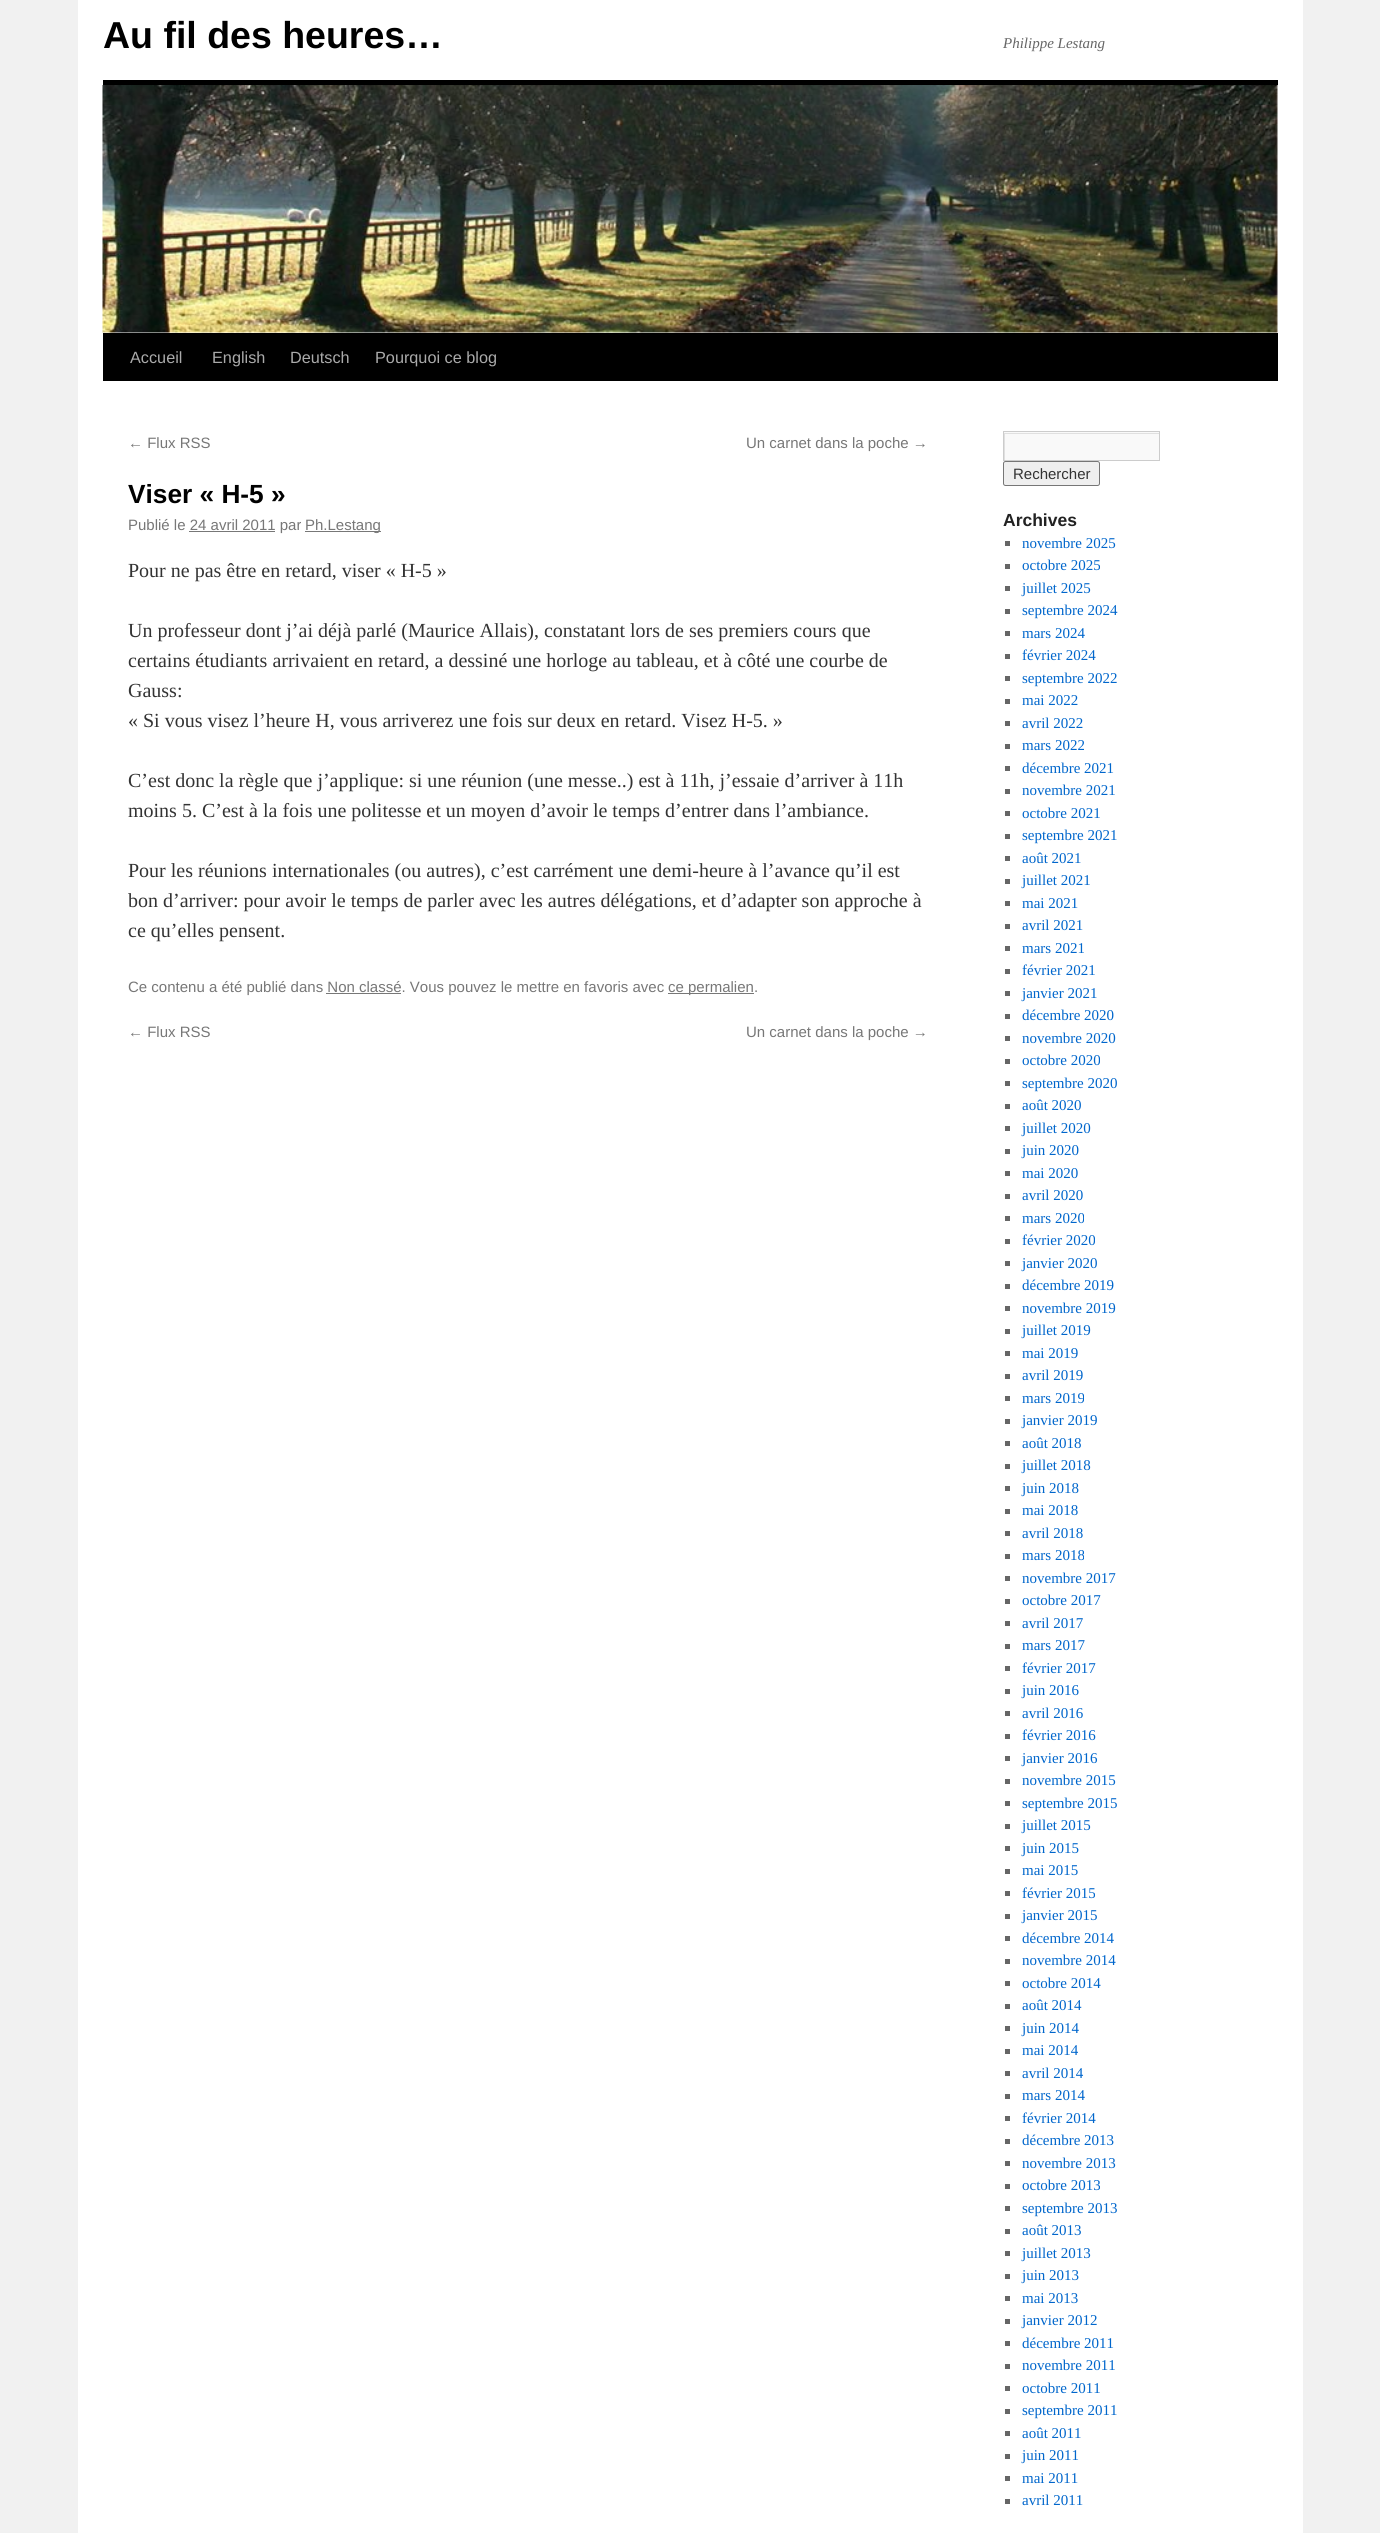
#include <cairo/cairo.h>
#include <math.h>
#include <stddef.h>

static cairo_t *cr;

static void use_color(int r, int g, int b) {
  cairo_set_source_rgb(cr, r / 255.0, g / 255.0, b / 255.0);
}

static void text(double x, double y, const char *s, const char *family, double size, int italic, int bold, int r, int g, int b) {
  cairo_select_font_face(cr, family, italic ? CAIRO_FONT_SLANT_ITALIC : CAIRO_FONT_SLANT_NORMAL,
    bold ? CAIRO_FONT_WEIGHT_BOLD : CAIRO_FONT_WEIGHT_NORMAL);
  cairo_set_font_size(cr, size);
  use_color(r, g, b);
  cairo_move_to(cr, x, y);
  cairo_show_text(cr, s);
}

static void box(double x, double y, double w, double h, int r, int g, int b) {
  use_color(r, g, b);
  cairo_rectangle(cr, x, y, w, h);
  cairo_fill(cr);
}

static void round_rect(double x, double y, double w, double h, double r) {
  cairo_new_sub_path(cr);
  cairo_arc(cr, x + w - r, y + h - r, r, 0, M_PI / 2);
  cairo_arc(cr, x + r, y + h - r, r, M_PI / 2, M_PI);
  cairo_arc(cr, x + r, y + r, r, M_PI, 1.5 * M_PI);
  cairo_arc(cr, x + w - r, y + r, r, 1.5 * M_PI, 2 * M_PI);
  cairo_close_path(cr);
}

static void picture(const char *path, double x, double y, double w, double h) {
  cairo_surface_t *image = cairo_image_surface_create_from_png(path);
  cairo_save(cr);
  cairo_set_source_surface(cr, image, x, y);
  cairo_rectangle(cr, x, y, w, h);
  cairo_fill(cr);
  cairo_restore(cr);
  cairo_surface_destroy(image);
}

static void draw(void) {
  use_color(241, 241, 241);
  cairo_paint(cr);
  box(78, 0, 1225, 2533, 255, 255, 255);
  box(103, 80, 1175, 5, 0, 0, 0);
  box(103, 333, 1175, 48, 0, 0, 0);
  picture("img_01.png", 102, 85, 1176, 248);
  box(305, 531, 76, 1, 119, 119, 119);
  box(189, 531, 86, 1, 119, 119, 119);
  box(668, 993, 86, 1, 119, 119, 119);
  box(326, 993, 75, 1, 119, 119, 119);
  box(1004, 432, 155, 28, 249, 249, 249);
  cairo_save(cr);
  cairo_rectangle(cr, 1004, 433, 155, 27);
  cairo_clip(cr);
  use_color(224, 224, 224);
  cairo_set_fill_rule(cr, CAIRO_FILL_RULE_EVEN_ODD);
  cairo_new_path(cr);
  cairo_move_to(cr, 880, 309);
  cairo_line_to(cr, 1282, 309);
  cairo_line_to(cr, 1282, 584);
  cairo_line_to(cr, 880, 584);
  cairo_close_path(cr);
  cairo_move_to(cr, 1005, 434);
  cairo_line_to(cr, 1160, 434);
  cairo_line_to(cr, 1160, 461);
  cairo_line_to(cr, 1005, 461);
  cairo_close_path(cr);
  cairo_fill(cr);
  cairo_restore(cr);
  cairo_rectangle(cr, 1003.5, 431.5, 156, 29);
  use_color(204, 204, 204);
  cairo_set_line_width(cr, 1);
  cairo_stroke(cr);
  use_color(239, 239, 239);
  round_rect(1003.5, 461.5, 96, 24, 2);
  cairo_fill_preserve(cr);
  use_color(118, 118, 118);
  cairo_stroke(cr);
  box(1005, 541, 5, 5, 102, 102, 102);
  box(1005, 564, 5, 5, 102, 102, 102);
  box(1005, 586, 5, 5, 102, 102, 102);
  box(1005, 609, 5, 5, 102, 102, 102);
  box(1005, 631, 5, 5, 102, 102, 102);
  box(1005, 654, 5, 5, 102, 102, 102);
  box(1005, 676, 5, 5, 102, 102, 102);
  box(1005, 699, 5, 5, 102, 102, 102);
  box(1005, 721, 5, 5, 102, 102, 102);
  box(1005, 744, 5, 5, 102, 102, 102);
  box(1005, 766, 5, 5, 102, 102, 102);
  box(1005, 789, 5, 5, 102, 102, 102);
  box(1005, 811, 5, 5, 102, 102, 102);
  box(1005, 834, 5, 5, 102, 102, 102);
  box(1005, 856, 5, 5, 102, 102, 102);
  box(1005, 879, 5, 5, 102, 102, 102);
  box(1005, 901, 5, 5, 102, 102, 102);
  box(1005, 924, 5, 5, 102, 102, 102);
  box(1005, 946, 5, 5, 102, 102, 102);
  box(1005, 969, 5, 5, 102, 102, 102);
  box(1005, 991, 5, 5, 102, 102, 102);
  box(1005, 1014, 5, 5, 102, 102, 102);
  box(1005, 1036, 5, 5, 102, 102, 102);
  box(1005, 1059, 5, 5, 102, 102, 102);
  box(1005, 1081, 5, 5, 102, 102, 102);
  box(1005, 1104, 5, 5, 102, 102, 102);
  box(1005, 1126, 5, 5, 102, 102, 102);
  box(1005, 1149, 5, 5, 102, 102, 102);
  box(1005, 1171, 5, 5, 102, 102, 102);
  box(1005, 1194, 5, 5, 102, 102, 102);
  box(1005, 1216, 5, 5, 102, 102, 102);
  box(1005, 1239, 5, 5, 102, 102, 102);
  box(1005, 1261, 5, 5, 102, 102, 102);
  box(1005, 1284, 5, 5, 102, 102, 102);
  box(1005, 1306, 5, 5, 102, 102, 102);
  box(1005, 1329, 5, 5, 102, 102, 102);
  box(1005, 1351, 5, 5, 102, 102, 102);
  box(1005, 1374, 5, 5, 102, 102, 102);
  box(1005, 1396, 5, 5, 102, 102, 102);
  box(1005, 1419, 5, 5, 102, 102, 102);
  box(1005, 1441, 5, 5, 102, 102, 102);
  box(1005, 1464, 5, 5, 102, 102, 102);
  box(1005, 1486, 5, 5, 102, 102, 102);
  box(1005, 1509, 5, 5, 102, 102, 102);
  box(1005, 1531, 5, 5, 102, 102, 102);
  box(1005, 1554, 5, 5, 102, 102, 102);
  box(1005, 1576, 5, 5, 102, 102, 102);
  box(1005, 1599, 5, 5, 102, 102, 102);
  box(1005, 1621, 5, 5, 102, 102, 102);
  box(1005, 1644, 5, 5, 102, 102, 102);
  box(1005, 1666, 5, 5, 102, 102, 102);
  box(1005, 1689, 5, 5, 102, 102, 102);
  box(1005, 1711, 5, 5, 102, 102, 102);
  box(1005, 1734, 5, 5, 102, 102, 102);
  box(1005, 1756, 5, 5, 102, 102, 102);
  box(1005, 1779, 5, 5, 102, 102, 102);
  box(1005, 1801, 5, 5, 102, 102, 102);
  box(1005, 1824, 5, 5, 102, 102, 102);
  box(1005, 1846, 5, 5, 102, 102, 102);
  box(1005, 1869, 5, 5, 102, 102, 102);
  box(1005, 1891, 5, 5, 102, 102, 102);
  box(1005, 1914, 5, 5, 102, 102, 102);
  box(1005, 1936, 5, 5, 102, 102, 102);
  box(1005, 1959, 5, 5, 102, 102, 102);
  box(1005, 1981, 5, 5, 102, 102, 102);
  box(1005, 2004, 5, 5, 102, 102, 102);
  box(1005, 2026, 5, 5, 102, 102, 102);
  box(1005, 2049, 5, 5, 102, 102, 102);
  box(1005, 2071, 5, 5, 102, 102, 102);
  box(1005, 2094, 5, 5, 102, 102, 102);
  box(1005, 2116, 5, 5, 102, 102, 102);
  box(1005, 2139, 5, 5, 102, 102, 102);
  box(1005, 2161, 5, 5, 102, 102, 102);
  box(1005, 2184, 5, 5, 102, 102, 102);
  box(1005, 2206, 5, 5, 102, 102, 102);
  box(1005, 2229, 5, 5, 102, 102, 102);
  box(1005, 2251, 5, 5, 102, 102, 102);
  box(1005, 2274, 5, 5, 102, 102, 102);
  box(1005, 2296, 5, 5, 102, 102, 102);
  box(1005, 2319, 5, 5, 102, 102, 102);
  box(1005, 2341, 5, 5, 102, 102, 102);
  box(1005, 2364, 5, 5, 102, 102, 102);
  box(1005, 2386, 5, 5, 102, 102, 102);
  box(1005, 2409, 5, 5, 102, 102, 102);
  box(1005, 2431, 5, 5, 102, 102, 102);
  box(1005, 2454, 5, 5, 102, 102, 102);
  box(1005, 2476, 5, 5, 102, 102, 102);
  box(1005, 2499, 5, 5, 102, 102, 102);
  text(103, 48, "Au fil des heures…", "Liberation Sans", 37.5, 0, 1, 0, 0, 0);
  text(1003, 48, "Philippe Lestang", "Liberation Serif", 15, 1, 0, 102, 102, 102);
  text(130, 363, "Accueil", "Liberation Sans", 16.25, 0, 0, 170, 170, 170);
  text(212, 363, "English", "Liberation Sans", 16.25, 0, 0, 170, 170, 170);
  text(290, 363, "Deutsch", "Liberation Sans", 16.25, 0, 0, 170, 170, 170);
  text(375, 363, "Pourquoi ce blog", "Liberation Sans", 16.25, 0, 0, 170, 170, 170);
  text(128, 448, "← Flux RSS", "Liberation Sans", 15, 0, 0, 119, 119, 119);
  text(746, 448, "Un carnet dans la poche →", "Liberation Sans", 15, 0, 0, 119, 119, 119);
  text(128, 503, "Viser « H-5 »", "Liberation Sans", 26.25, 0, 1, 0, 0, 0);
  text(128, 530, "Publié le 24 avril 2011 par", "Liberation Sans", 15, 0, 0, 119, 119, 119);
  text(305, 530, "Ph.Lestang", "Liberation Sans", 15, 0, 0, 119, 119, 119);
  text(128, 577, "Pour ne pas être en retard, viser « H-5 »", "Liberation Serif", 20, 0, 0, 51, 51, 51);
  text(128, 637, "Un professeur dont j’ai déjà parlé (Maurice Allais), constatant lors de ses premiers cours que", "Liberation Serif", 20, 0, 0, 51, 51, 51);
  text(128, 667, "certains étudiants arrivaient en retard, a dessiné une horloge au tableau, et à côté une courbe de", "Liberation Serif", 20, 0, 0, 51, 51, 51);
  text(128, 697, "Gauss:", "Liberation Serif", 20, 0, 0, 51, 51, 51);
  text(128, 727, "« Si vous visez l’heure H, vous arriverez une fois sur deux en retard. Visez H-5. »", "Liberation Serif", 20, 0, 0, 51, 51, 51);
  text(128, 787, "C’est donc la règle que j’applique: si une réunion (une messe..) est à 11h, j’essaie d’arriver à 11h", "Liberation Serif", 20, 0, 0, 51, 51, 51);
  text(128, 817, "moins 5. C’est à la fois une politesse et un moyen d’avoir le temps d’entrer dans l’ambiance.", "Liberation Serif", 20, 0, 0, 51, 51, 51);
  text(128, 877, "Pour les réunions internationales (ou autres), c’est carrément une demi-heure à l’avance qu’il est", "Liberation Serif", 20, 0, 0, 51, 51, 51);
  text(128, 907, "bon d’arriver: pour avoir le temps de parler avec les autres délégations, et d’adapter son approche à", "Liberation Serif", 20, 0, 0, 51, 51, 51);
  text(128, 937, "ce qu’elles pensent.", "Liberation Serif", 20, 0, 0, 51, 51, 51);
  text(128, 992, "Ce contenu a été publié dans Non classé. Vous pouvez le mettre en favoris avec", "Liberation Sans", 15, 0, 0, 119, 119, 119);
  text(668, 992, "ce permalien.", "Liberation Sans", 15, 0, 0, 119, 119, 119);
  text(128, 1037, "← Flux RSS", "Liberation Sans", 15, 0, 0, 119, 119, 119);
  text(746, 1037, "Un carnet dans la poche →", "Liberation Sans", 15, 0, 0, 119, 119, 119);
  text(1013, 479, "Rechercher", "Liberation Sans", 15, 0, 0, 51, 51, 51);
  text(1003, 526, "Archives", "Liberation Sans", 17.5, 0, 1, 34, 34, 34);
  text(1022, 548, "novembre 2025", "Liberation Serif", 15, 0, 0, 0, 102, 204);
  text(1022, 570, "octobre 2025", "Liberation Serif", 15, 0, 0, 0, 102, 204);
  text(1022, 593, "juillet 2025", "Liberation Serif", 15, 0, 0, 0, 102, 204);
  text(1022, 615, "septembre 2024", "Liberation Serif", 15, 0, 0, 0, 102, 204);
  text(1022, 638, "mars 2024", "Liberation Serif", 15, 0, 0, 0, 102, 204);
  text(1022, 660, "février 2024", "Liberation Serif", 15, 0, 0, 0, 102, 204);
  text(1022, 683, "septembre 2022", "Liberation Serif", 15, 0, 0, 0, 102, 204);
  text(1022, 705, "mai 2022", "Liberation Serif", 15, 0, 0, 0, 102, 204);
  text(1022, 728, "avril 2022", "Liberation Serif", 15, 0, 0, 0, 102, 204);
  text(1022, 750, "mars 2022", "Liberation Serif", 15, 0, 0, 0, 102, 204);
  text(1022, 773, "décembre 2021", "Liberation Serif", 15, 0, 0, 0, 102, 204);
  text(1022, 795, "novembre 2021", "Liberation Serif", 15, 0, 0, 0, 102, 204);
  text(1022, 818, "octobre 2021", "Liberation Serif", 15, 0, 0, 0, 102, 204);
  text(1022, 840, "septembre 2021", "Liberation Serif", 15, 0, 0, 0, 102, 204);
  text(1022, 863, "août 2021", "Liberation Serif", 15, 0, 0, 0, 102, 204);
  text(1022, 885, "juillet 2021", "Liberation Serif", 15, 0, 0, 0, 102, 204);
  text(1022, 908, "mai 2021", "Liberation Serif", 15, 0, 0, 0, 102, 204);
  text(1022, 930, "avril 2021", "Liberation Serif", 15, 0, 0, 0, 102, 204);
  text(1022, 953, "mars 2021", "Liberation Serif", 15, 0, 0, 0, 102, 204);
  text(1022, 975, "février 2021", "Liberation Serif", 15, 0, 0, 0, 102, 204);
  text(1022, 998, "janvier 2021", "Liberation Serif", 15, 0, 0, 0, 102, 204);
  text(1022, 1020, "décembre 2020", "Liberation Serif", 15, 0, 0, 0, 102, 204);
  text(1022, 1043, "novembre 2020", "Liberation Serif", 15, 0, 0, 0, 102, 204);
  text(1022, 1065, "octobre 2020", "Liberation Serif", 15, 0, 0, 0, 102, 204);
  text(1022, 1088, "septembre 2020", "Liberation Serif", 15, 0, 0, 0, 102, 204);
  text(1022, 1110, "août 2020", "Liberation Serif", 15, 0, 0, 0, 102, 204);
  text(1022, 1133, "juillet 2020", "Liberation Serif", 15, 0, 0, 0, 102, 204);
  text(1022, 1155, "juin 2020", "Liberation Serif", 15, 0, 0, 0, 102, 204);
  text(1022, 1178, "mai 2020", "Liberation Serif", 15, 0, 0, 0, 102, 204);
  text(1022, 1200, "avril 2020", "Liberation Serif", 15, 0, 0, 0, 102, 204);
  text(1022, 1223, "mars 2020", "Liberation Serif", 15, 0, 0, 0, 102, 204);
  text(1022, 1245, "février 2020", "Liberation Serif", 15, 0, 0, 0, 102, 204);
  text(1022, 1268, "janvier 2020", "Liberation Serif", 15, 0, 0, 0, 102, 204);
  text(1022, 1290, "décembre 2019", "Liberation Serif", 15, 0, 0, 0, 102, 204);
  text(1022, 1313, "novembre 2019", "Liberation Serif", 15, 0, 0, 0, 102, 204);
  text(1022, 1335, "juillet 2019", "Liberation Serif", 15, 0, 0, 0, 102, 204);
  text(1022, 1358, "mai 2019", "Liberation Serif", 15, 0, 0, 0, 102, 204);
  text(1022, 1380, "avril 2019", "Liberation Serif", 15, 0, 0, 0, 102, 204);
  text(1022, 1403, "mars 2019", "Liberation Serif", 15, 0, 0, 0, 102, 204);
  text(1022, 1425, "janvier 2019", "Liberation Serif", 15, 0, 0, 0, 102, 204);
  text(1022, 1448, "août 2018", "Liberation Serif", 15, 0, 0, 0, 102, 204);
  text(1022, 1470, "juillet 2018", "Liberation Serif", 15, 0, 0, 0, 102, 204);
  text(1022, 1493, "juin 2018", "Liberation Serif", 15, 0, 0, 0, 102, 204);
  text(1022, 1515, "mai 2018", "Liberation Serif", 15, 0, 0, 0, 102, 204);
  text(1022, 1538, "avril 2018", "Liberation Serif", 15, 0, 0, 0, 102, 204);
  text(1022, 1560, "mars 2018", "Liberation Serif", 15, 0, 0, 0, 102, 204);
  text(1022, 1583, "novembre 2017", "Liberation Serif", 15, 0, 0, 0, 102, 204);
  text(1022, 1605, "octobre 2017", "Liberation Serif", 15, 0, 0, 0, 102, 204);
  text(1022, 1628, "avril 2017", "Liberation Serif", 15, 0, 0, 0, 102, 204);
  text(1022, 1650, "mars 2017", "Liberation Serif", 15, 0, 0, 0, 102, 204);
  text(1022, 1673, "février 2017", "Liberation Serif", 15, 0, 0, 0, 102, 204);
  text(1022, 1695, "juin 2016", "Liberation Serif", 15, 0, 0, 0, 102, 204);
  text(1022, 1718, "avril 2016", "Liberation Serif", 15, 0, 0, 0, 102, 204);
  text(1022, 1740, "février 2016", "Liberation Serif", 15, 0, 0, 0, 102, 204);
  text(1022, 1763, "janvier 2016", "Liberation Serif", 15, 0, 0, 0, 102, 204);
  text(1022, 1785, "novembre 2015", "Liberation Serif", 15, 0, 0, 0, 102, 204);
  text(1022, 1808, "septembre 2015", "Liberation Serif", 15, 0, 0, 0, 102, 204);
  text(1022, 1830, "juillet 2015", "Liberation Serif", 15, 0, 0, 0, 102, 204);
  text(1022, 1853, "juin 2015", "Liberation Serif", 15, 0, 0, 0, 102, 204);
  text(1022, 1875, "mai 2015", "Liberation Serif", 15, 0, 0, 0, 102, 204);
  text(1022, 1898, "février 2015", "Liberation Serif", 15, 0, 0, 0, 102, 204);
  text(1022, 1920, "janvier 2015", "Liberation Serif", 15, 0, 0, 0, 102, 204);
  text(1022, 1943, "décembre 2014", "Liberation Serif", 15, 0, 0, 0, 102, 204);
  text(1022, 1965, "novembre 2014", "Liberation Serif", 15, 0, 0, 0, 102, 204);
  text(1022, 1988, "octobre 2014", "Liberation Serif", 15, 0, 0, 0, 102, 204);
  text(1022, 2010, "août 2014", "Liberation Serif", 15, 0, 0, 0, 102, 204);
  text(1022, 2033, "juin 2014", "Liberation Serif", 15, 0, 0, 0, 102, 204);
  text(1022, 2055, "mai 2014", "Liberation Serif", 15, 0, 0, 0, 102, 204);
  text(1022, 2078, "avril 2014", "Liberation Serif", 15, 0, 0, 0, 102, 204);
  text(1022, 2100, "mars 2014", "Liberation Serif", 15, 0, 0, 0, 102, 204);
  text(1022, 2123, "février 2014", "Liberation Serif", 15, 0, 0, 0, 102, 204);
  text(1022, 2145, "décembre 2013", "Liberation Serif", 15, 0, 0, 0, 102, 204);
  text(1022, 2168, "novembre 2013", "Liberation Serif", 15, 0, 0, 0, 102, 204);
  text(1022, 2190, "octobre 2013", "Liberation Serif", 15, 0, 0, 0, 102, 204);
  text(1022, 2213, "septembre 2013", "Liberation Serif", 15, 0, 0, 0, 102, 204);
  text(1022, 2235, "août 2013", "Liberation Serif", 15, 0, 0, 0, 102, 204);
  text(1022, 2258, "juillet 2013", "Liberation Serif", 15, 0, 0, 0, 102, 204);
  text(1022, 2280, "juin 2013", "Liberation Serif", 15, 0, 0, 0, 102, 204);
  text(1022, 2303, "mai 2013", "Liberation Serif", 15, 0, 0, 0, 102, 204);
  text(1022, 2325, "janvier 2012", "Liberation Serif", 15, 0, 0, 0, 102, 204);
  text(1022, 2348, "décembre 2011", "Liberation Serif", 15, 0, 0, 0, 102, 204);
  text(1022, 2370, "novembre 2011", "Liberation Serif", 15, 0, 0, 0, 102, 204);
  text(1022, 2393, "octobre 2011", "Liberation Serif", 15, 0, 0, 0, 102, 204);
  text(1022, 2415, "septembre 2011", "Liberation Serif", 15, 0, 0, 0, 102, 204);
  text(1022, 2438, "août 2011", "Liberation Serif", 15, 0, 0, 0, 102, 204);
  text(1022, 2460, "juin 2011", "Liberation Serif", 15, 0, 0, 0, 102, 204);
  text(1022, 2483, "mai 2011", "Liberation Serif", 15, 0, 0, 0, 102, 204);
  text(1022, 2505, "avril 2011", "Liberation Serif", 15, 0, 0, 0, 102, 204);
}

int main(void) {
  cairo_surface_t *surface = cairo_image_surface_create(CAIRO_FORMAT_RGB24, 1380, 2533);
  cr = cairo_create(surface);
  cairo_font_options_t *options = cairo_font_options_create();
  cairo_font_options_set_hint_metrics(options, CAIRO_HINT_METRICS_OFF);
  cairo_font_options_set_hint_style(options, CAIRO_HINT_STYLE_NONE);
  cairo_set_font_options(cr, options);
  cairo_set_miter_limit(cr, 4);
  draw();
  cairo_surface_write_to_png(surface, "out.png");
  cairo_font_options_destroy(options);
  cairo_destroy(cr);
  cairo_surface_destroy(surface);
  return 0;
}
